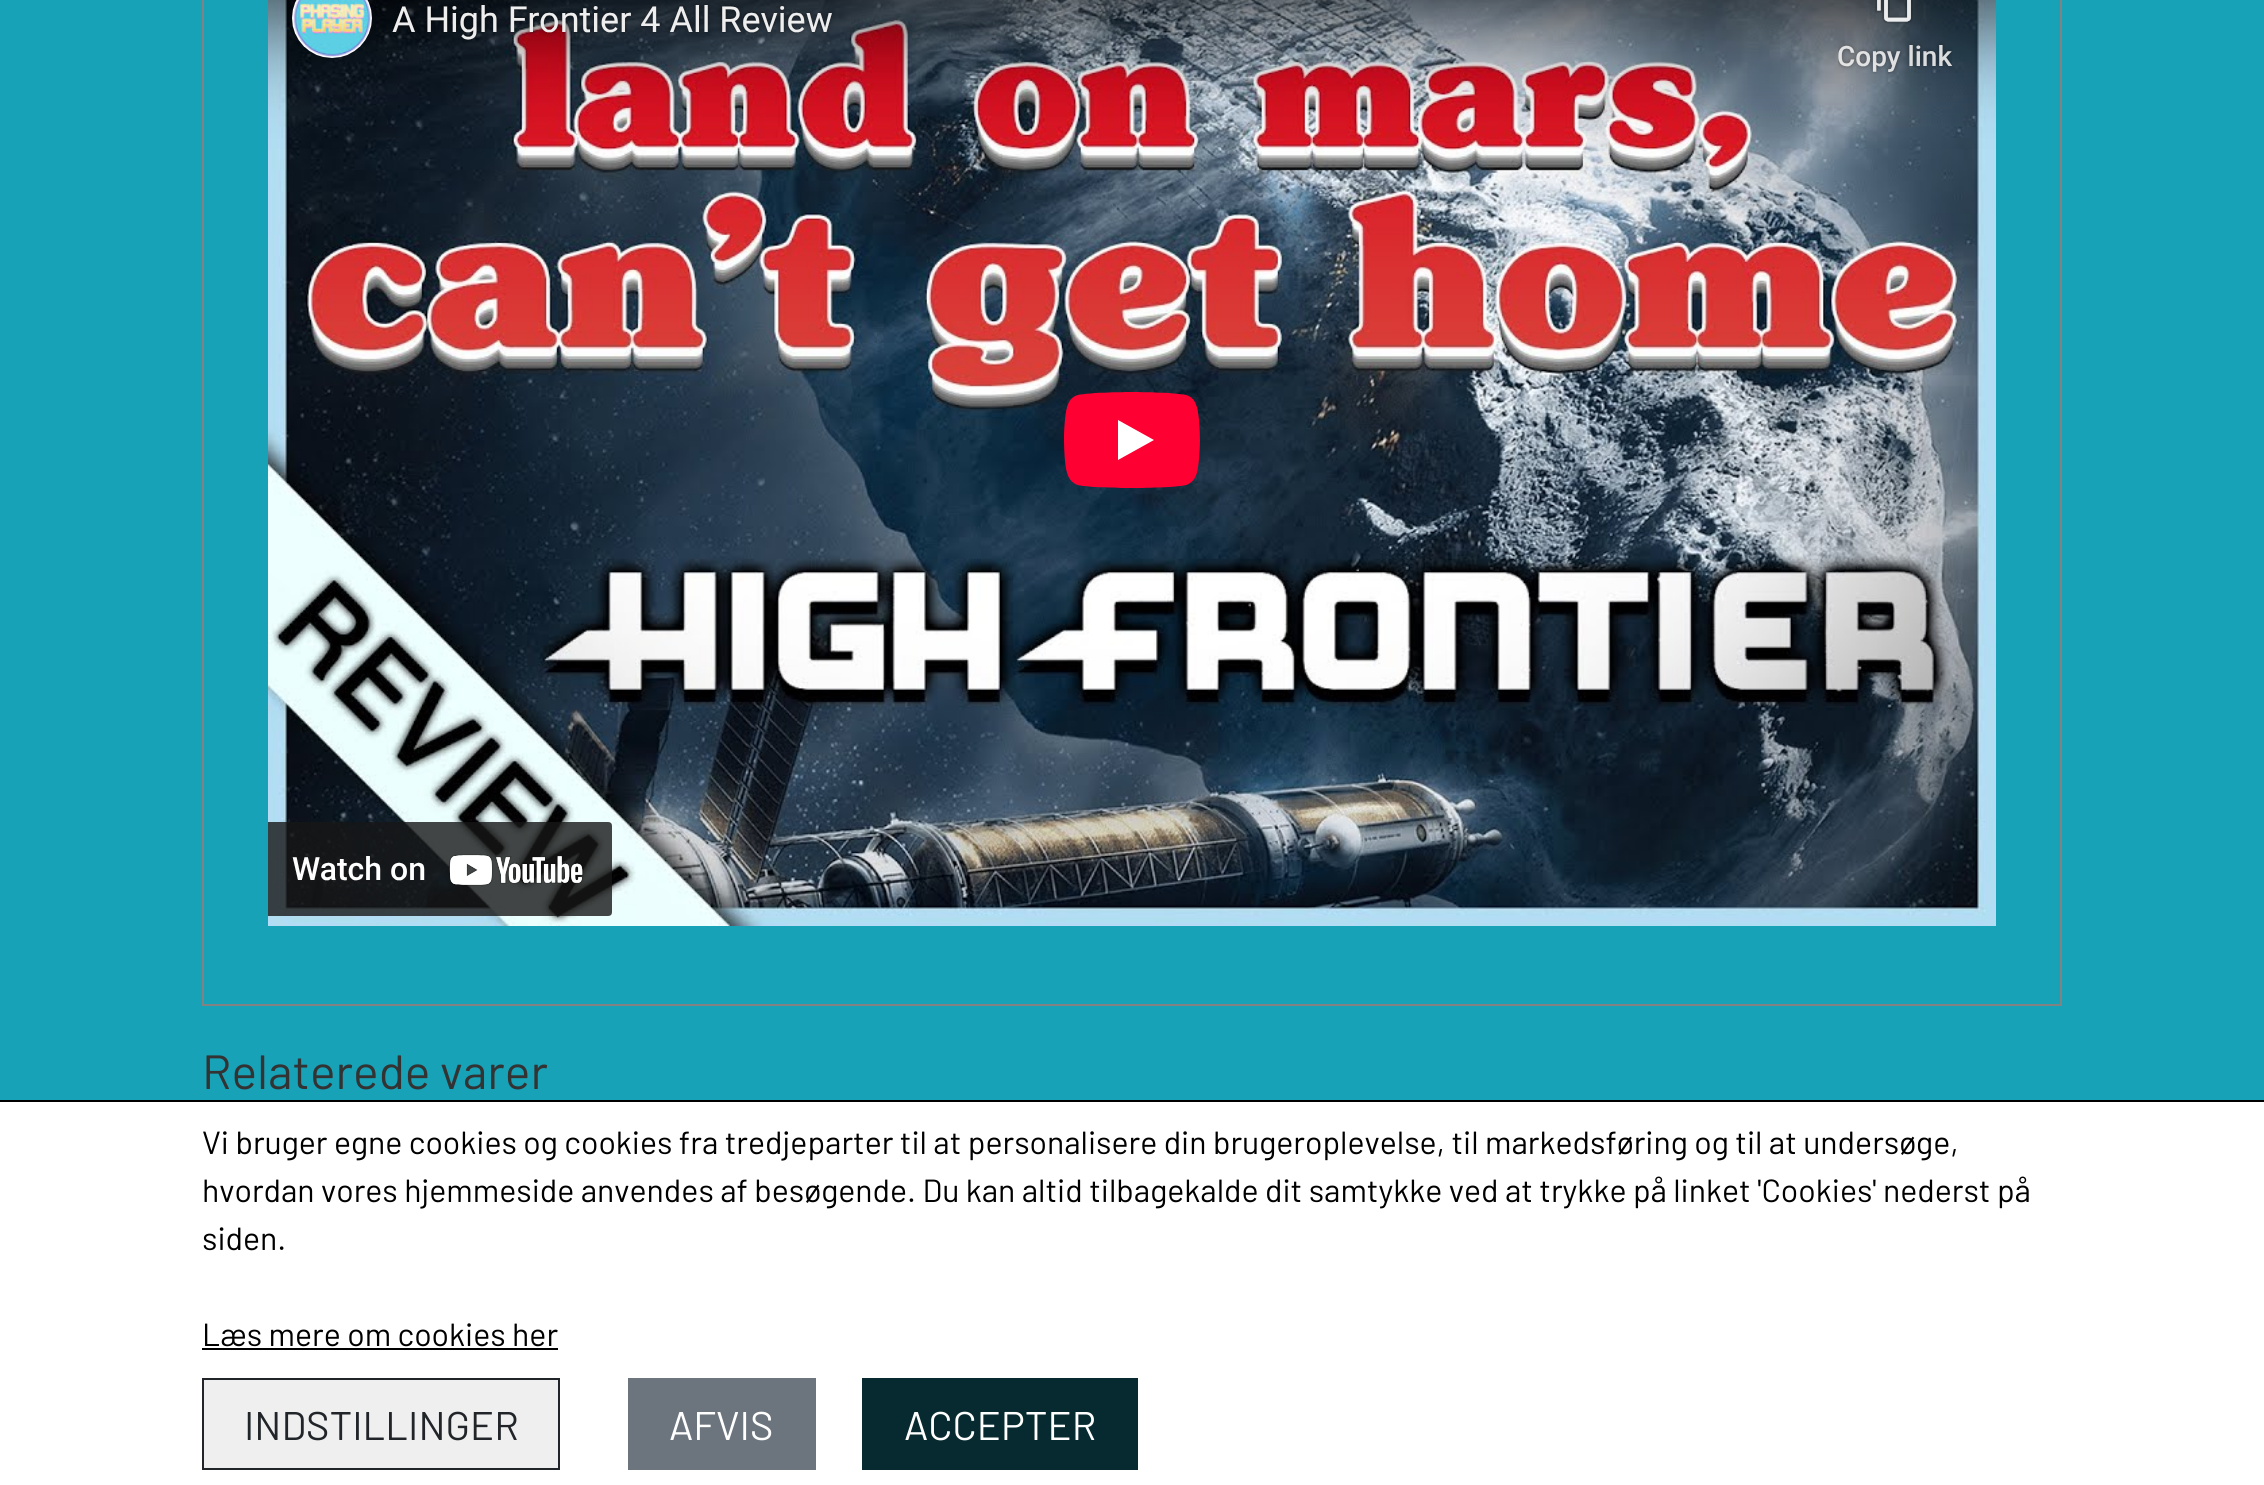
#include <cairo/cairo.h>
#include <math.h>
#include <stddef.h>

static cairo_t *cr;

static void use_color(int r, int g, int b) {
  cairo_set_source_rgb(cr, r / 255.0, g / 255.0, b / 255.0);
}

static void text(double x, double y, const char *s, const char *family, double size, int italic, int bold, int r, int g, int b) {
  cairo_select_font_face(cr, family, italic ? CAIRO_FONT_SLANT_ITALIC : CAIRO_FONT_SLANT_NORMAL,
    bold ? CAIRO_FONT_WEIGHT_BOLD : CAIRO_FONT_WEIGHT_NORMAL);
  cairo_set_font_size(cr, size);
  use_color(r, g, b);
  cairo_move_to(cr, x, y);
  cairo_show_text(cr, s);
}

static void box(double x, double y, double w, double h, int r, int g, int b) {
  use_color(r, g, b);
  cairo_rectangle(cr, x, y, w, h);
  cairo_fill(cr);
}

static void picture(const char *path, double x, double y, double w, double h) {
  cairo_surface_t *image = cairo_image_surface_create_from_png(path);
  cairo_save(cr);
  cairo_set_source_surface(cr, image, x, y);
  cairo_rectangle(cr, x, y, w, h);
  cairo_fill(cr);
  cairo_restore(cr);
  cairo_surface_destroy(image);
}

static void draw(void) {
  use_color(23, 162, 184);
  cairo_paint(cr);
  cairo_rectangle(cr, 203, -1, 1858, 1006);
  use_color(130, 130, 130);
  cairo_stroke(cr);
  picture("img_01.png", 268, 0, 1728, 926);
  box(0, 1102, 2264, 383, 255, 255, 255);
  box(0, 1100, 2264, 2, 0, 0, 0);
  box(202, 1348, 356, 2, 0, 0, 0);
  use_color(239, 239, 239);
  cairo_rectangle(cr, 203, 1379, 356, 90);
  cairo_fill_preserve(cr);
  use_color(33, 37, 41);
  cairo_stroke(cr);
  box(628, 1378, 188, 92, 108, 117, 125);
  box(862, 1378, 276, 92, 6, 42, 48);
  text(202, 1089, "Relaterede varer", "Barlow", 48, 0, 0, 51, 51, 51);
  text(202, 1154, "Vi bruger egne cookies og cookies fra tredjeparter til at personalisere din brugeroplevelse, til markedsføring og til at undersøge,", "Barlow", 32, 0, 0, 0, 0, 0);
  text(202, 1202, "hvordan vores hjemmeside anvendes af besøgende. Du kan altid tilbagekalde dit samtykke ved at trykke på linket 'Cookies' nederst på", "Barlow", 32, 0, 0, 0, 0, 0);
  text(202, 1250, "siden.", "Barlow", 32, 0, 0, 0, 0, 0);
  text(202, 1346, "Læs mere om cookies her", "Barlow", 32, 0, 0, 0, 0, 0);
  text(244, 1440, "INDSTILLINGER", "Barlow", 40, 0, 0, 33, 37, 41);
  text(669, 1440, "AFVIS", "Barlow", 40, 0, 0, 255, 255, 255);
  text(904, 1440, "ACCEPTER", "Barlow", 40, 0, 0, 255, 255, 255);
}

int main(void) {
  cairo_surface_t *surface = cairo_image_surface_create(CAIRO_FORMAT_RGB24, 2264, 1485);
  cr = cairo_create(surface);
  cairo_font_options_t *options = cairo_font_options_create();
  cairo_font_options_set_hint_metrics(options, CAIRO_HINT_METRICS_OFF);
  cairo_font_options_set_hint_style(options, CAIRO_HINT_STYLE_NONE);
  cairo_set_font_options(cr, options);
  cairo_set_miter_limit(cr, 4);
  draw();
  cairo_surface_write_to_png(surface, "out.png");
  cairo_font_options_destroy(options);
  cairo_destroy(cr);
  cairo_surface_destroy(surface);
  return 0;
}
